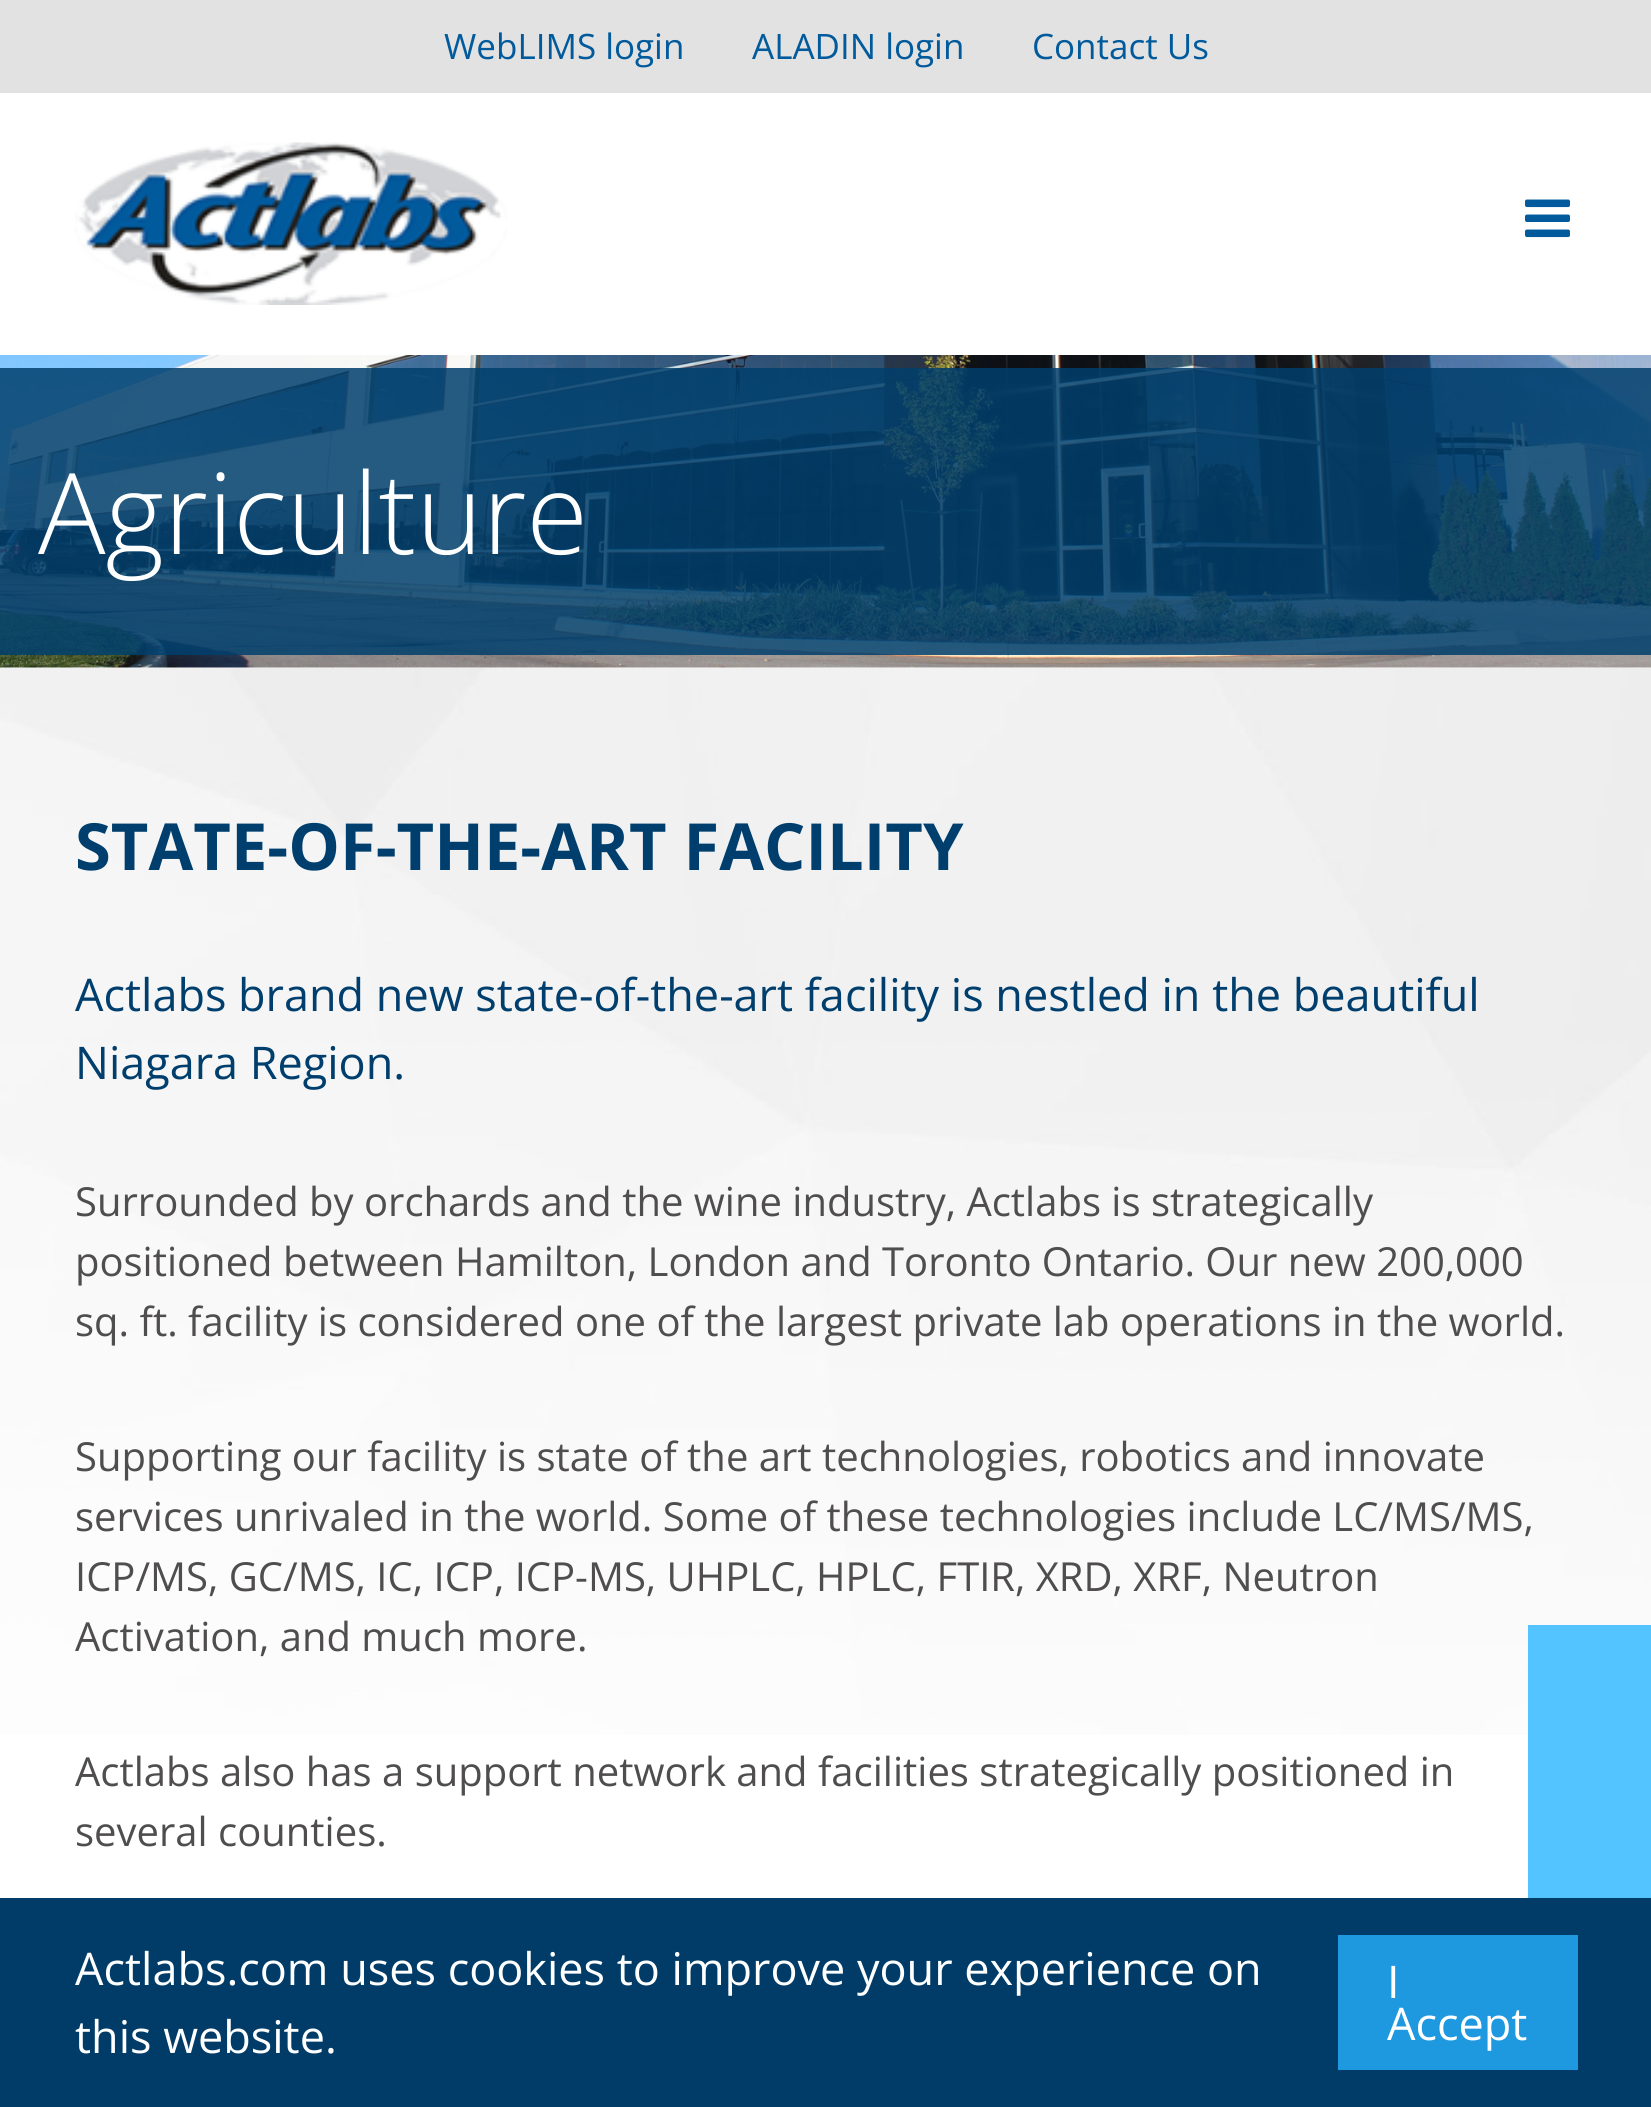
#include <cairo/cairo.h>
#include <math.h>
#include <stddef.h>

static cairo_t *cr;

static void use_color(int r, int g, int b) {
  cairo_set_source_rgb(cr, r / 255.0, g / 255.0, b / 255.0);
}

static void text(double x, double y, const char *s, const char *family, double size, int italic, int bold, int r, int g, int b) {
  cairo_select_font_face(cr, family, italic ? CAIRO_FONT_SLANT_ITALIC : CAIRO_FONT_SLANT_NORMAL,
    bold ? CAIRO_FONT_WEIGHT_BOLD : CAIRO_FONT_WEIGHT_NORMAL);
  cairo_set_font_size(cr, size);
  use_color(r, g, b);
  cairo_move_to(cr, x, y);
  cairo_show_text(cr, s);
}

static void box(double x, double y, double w, double h, int r, int g, int b) {
  use_color(r, g, b);
  cairo_rectangle(cr, x, y, w, h);
  cairo_fill(cr);
}

static void picture(const char *path, double x, double y, double w, double h) {
  cairo_surface_t *image = cairo_image_surface_create_from_png(path);
  cairo_save(cr);
  cairo_set_source_surface(cr, image, x, y);
  cairo_rectangle(cr, x, y, w, h);
  cairo_fill(cr);
  cairo_restore(cr);
  cairo_surface_destroy(image);
}

static void draw(void) {
  use_color(255, 255, 255);
  cairo_paint(cr);
  box(0, 0, 1651, 93, 226, 226, 226);
  picture("img_01.png", 75, 142, 432, 163);
  picture("img_02.png", 1525, 199, 45, 39);
  picture("img_03.png", 0, 355, 1651, 313);
  picture("img_04.png", 0, 668, 1651, 1067);
  box(1528, 1625, 123, 273, 83, 196, 255);
  box(0, 1898, 1651, 209, 0, 60, 103);
  box(1338, 1935, 240, 135, 30, 153, 223);
  text(444, 59, "WebLIMS login", "Open Sans", 35, 0, 0, 0, 90, 156);
  text(752, 59, "ALADIN login", "Open Sans", 35, 0, 0, 0, 90, 156);
  text(1032, 59, "Contact Us", "Open Sans", 35, 0, 0, 0, 90, 156);
  text(38, 554, "Agriculture", "Open Sans Light", 112.5, 0, 0, 255, 255, 255);
  text(75, 870, "STATE-OF-THE-ART FACILITY", "Open Sans", 65, 0, 1, 0, 63, 109);
  text(75, 1011, "Actlabs brand new state-of-the-art facility is nestled in the beautiful", "Open Sans", 45, 0, 0, 0, 63, 109);
  text(75, 1079, "Niagara Region.", "Open Sans", 45, 0, 0, 0, 63, 109);
  text(75, 1216, "Surrounded by orchards and the wine industry, Actlabs is strategically", "Open Sans", 40, 0, 0, 79, 77, 77);
  text(75, 1276, "positioned between Hamilton, London and Toronto Ontario. Our new 200,000", "Open Sans", 40, 0, 0, 79, 77, 77);
  text(75, 1336, "sq. ft. facility is considered one of the largest private lab operations in the world.", "Open Sans", 40, 0, 0, 79, 77, 77);
  text(75, 1471, "Supporting our facility is state of the art technologies, robotics and innovate", "Open Sans", 40, 0, 0, 79, 77, 77);
  text(75, 1531, "services unrivaled in the world. Some of these technologies include LC/MS/MS,", "Open Sans", 40, 0, 0, 79, 77, 77);
  text(75, 1591, "ICP/MS, GC/MS, IC, ICP, ICP-MS, UHPLC, HPLC, FTIR, XRD, XRF, Neutron", "Open Sans", 40, 0, 0, 79, 77, 77);
  text(75, 1651, "Activation, and much more.", "Open Sans", 40, 0, 0, 79, 77, 77);
  text(75, 1786, "Actlabs also has a support network and facilities strategically positioned in", "Open Sans", 40, 0, 0, 79, 77, 77);
  text(75, 1846, "several counties.", "Open Sans", 40, 0, 0, 79, 77, 77);
  text(75, 1985, "Actlabs.com uses cookies to improve your experience on", "Open Sans", 45, 0, 0, 255, 255, 255);
  text(75, 2053, "this website.", "Open Sans", 45, 0, 0, 255, 255, 255);
  text(1387, 1998, "I", "Open Sans", 45, 0, 0, 255, 255, 255);
  text(1387, 2040, "Accept", "Open Sans", 45, 0, 0, 255, 255, 255);
}

int main(void) {
  cairo_surface_t *surface = cairo_image_surface_create(CAIRO_FORMAT_RGB24, 1651, 2107);
  cr = cairo_create(surface);
  cairo_font_options_t *options = cairo_font_options_create();
  cairo_font_options_set_hint_metrics(options, CAIRO_HINT_METRICS_OFF);
  cairo_font_options_set_hint_style(options, CAIRO_HINT_STYLE_NONE);
  cairo_set_font_options(cr, options);
  cairo_set_miter_limit(cr, 4);
  draw();
  cairo_surface_write_to_png(surface, "out.png");
  cairo_font_options_destroy(options);
  cairo_destroy(cr);
  cairo_surface_destroy(surface);
  return 0;
}
